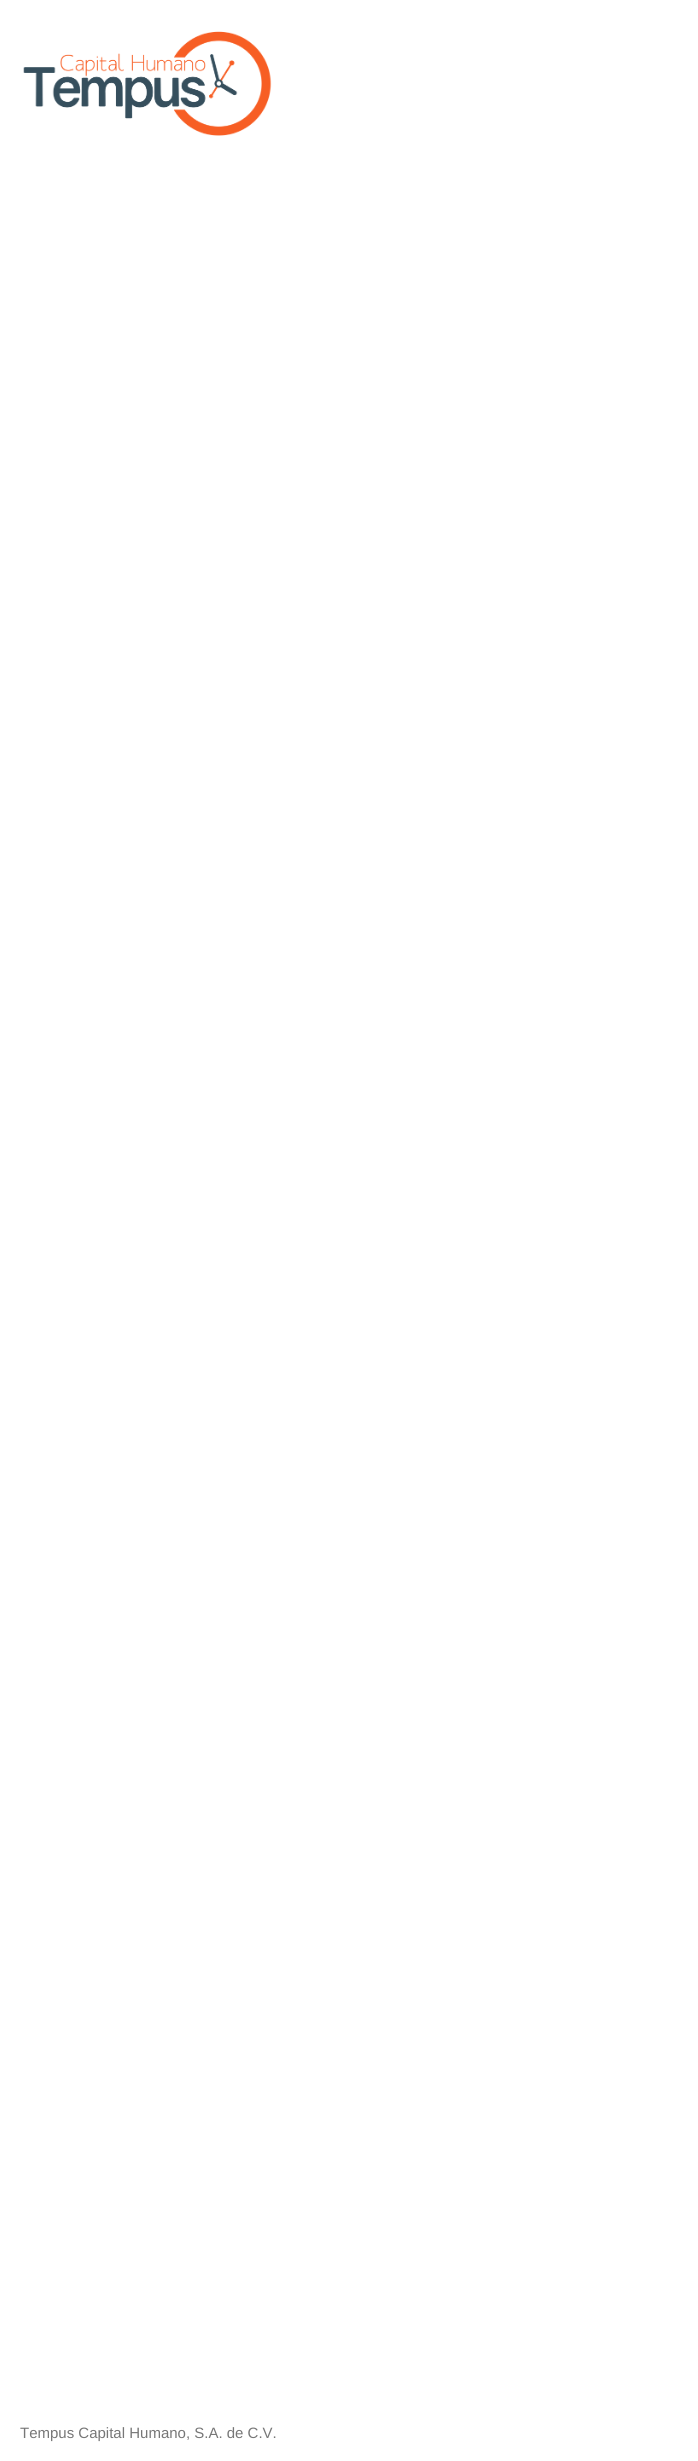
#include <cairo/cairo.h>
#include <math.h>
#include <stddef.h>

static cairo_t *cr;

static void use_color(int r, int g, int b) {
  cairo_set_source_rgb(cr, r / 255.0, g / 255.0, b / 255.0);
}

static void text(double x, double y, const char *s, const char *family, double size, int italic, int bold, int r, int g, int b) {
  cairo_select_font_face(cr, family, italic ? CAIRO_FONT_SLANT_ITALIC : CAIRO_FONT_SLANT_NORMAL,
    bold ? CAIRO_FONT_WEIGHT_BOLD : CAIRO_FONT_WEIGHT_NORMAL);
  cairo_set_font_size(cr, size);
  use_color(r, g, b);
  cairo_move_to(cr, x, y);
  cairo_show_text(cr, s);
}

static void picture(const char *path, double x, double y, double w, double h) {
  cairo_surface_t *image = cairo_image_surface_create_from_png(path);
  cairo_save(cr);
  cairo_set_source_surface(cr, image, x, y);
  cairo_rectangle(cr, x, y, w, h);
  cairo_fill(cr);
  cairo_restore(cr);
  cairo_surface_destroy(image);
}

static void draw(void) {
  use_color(255, 255, 255);
  cairo_paint(cr);
  picture("img_01.png", 23, 31, 249, 105);
  text(20, 2438, "Tempus Capital Humano, S.A. de C.V.", "Liberation Sans", 15, 0, 0, 119, 119, 119);
}

int main(void) {
  cairo_surface_t *surface = cairo_image_surface_create(CAIRO_FORMAT_RGB24, 698, 2461);
  cr = cairo_create(surface);
  cairo_font_options_t *options = cairo_font_options_create();
  cairo_font_options_set_hint_metrics(options, CAIRO_HINT_METRICS_OFF);
  cairo_font_options_set_hint_style(options, CAIRO_HINT_STYLE_NONE);
  cairo_set_font_options(cr, options);
  cairo_set_miter_limit(cr, 4);
  draw();
  cairo_surface_write_to_png(surface, "out.png");
  cairo_font_options_destroy(options);
  cairo_destroy(cr);
  cairo_surface_destroy(surface);
  return 0;
}
